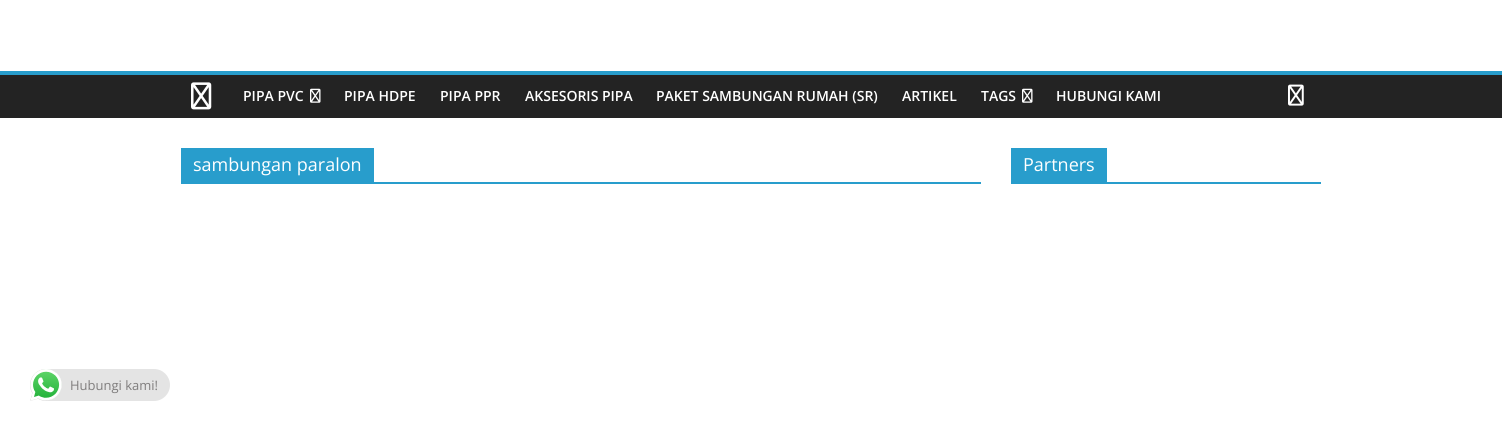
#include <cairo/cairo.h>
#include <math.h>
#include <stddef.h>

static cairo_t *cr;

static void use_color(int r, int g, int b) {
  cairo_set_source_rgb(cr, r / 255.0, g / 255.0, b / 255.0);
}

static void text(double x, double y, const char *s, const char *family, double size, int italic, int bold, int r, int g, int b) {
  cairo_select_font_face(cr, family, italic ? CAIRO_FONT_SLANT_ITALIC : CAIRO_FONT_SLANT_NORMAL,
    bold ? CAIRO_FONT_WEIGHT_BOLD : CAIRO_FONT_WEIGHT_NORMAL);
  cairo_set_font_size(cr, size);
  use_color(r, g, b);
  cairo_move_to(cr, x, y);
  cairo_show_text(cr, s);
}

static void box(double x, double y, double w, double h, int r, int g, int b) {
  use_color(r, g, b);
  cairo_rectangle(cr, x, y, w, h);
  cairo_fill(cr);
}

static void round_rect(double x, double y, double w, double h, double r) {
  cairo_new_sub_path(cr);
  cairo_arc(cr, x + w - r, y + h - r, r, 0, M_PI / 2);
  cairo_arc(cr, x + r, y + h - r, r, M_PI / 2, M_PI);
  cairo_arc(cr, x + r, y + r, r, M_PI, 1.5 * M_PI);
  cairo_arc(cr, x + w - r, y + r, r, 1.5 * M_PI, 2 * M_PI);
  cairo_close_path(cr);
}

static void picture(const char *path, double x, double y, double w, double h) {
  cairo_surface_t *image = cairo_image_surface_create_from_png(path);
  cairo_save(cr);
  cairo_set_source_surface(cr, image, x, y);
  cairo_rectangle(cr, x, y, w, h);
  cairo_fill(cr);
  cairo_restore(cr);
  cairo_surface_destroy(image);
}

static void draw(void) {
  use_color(255, 255, 255);
  cairo_paint(cr);
  box(0, 75, 1502, 43, 35, 35, 35);
  box(0, 71, 1502, 4, 40, 157, 204);
  picture("img_01.png", 191, 82, 21, 28);
  picture("img_02.png", 310, 88, 11, 15);
  picture("img_02.png", 1022, 88, 11, 15);
  picture("img_03.png", 1288, 84, 16, 22);
  box(181, 182, 800, 2, 40, 157, 204);
  box(181, 148, 193, 34, 40, 157, 204);
  box(1011, 182, 310, 2, 40, 157, 204);
  box(1011, 148, 96, 34, 40, 157, 204);
  use_color(228, 228, 228);
  round_rect(30, 369, 140, 32, 16);
  cairo_fill(cr);
  picture("img_04.png", 30, 369, 32, 32);
  text(243, 101, "PIPA PVC", "Open Sans SemiBold", 14, 0, 0, 255, 255, 255);
  text(344, 101, "PIPA HDPE", "Open Sans SemiBold", 14, 0, 0, 255, 255, 255);
  text(440, 101, "PIPA PPR", "Open Sans SemiBold", 14, 0, 0, 255, 255, 255);
  text(525, 101, "AKSESORIS PIPA", "Open Sans SemiBold", 14, 0, 0, 255, 255, 255);
  text(656, 101, "PAKET SAMBUNGAN RUMAH (SR)", "Open Sans SemiBold", 14, 0, 0, 255, 255, 255);
  text(902, 101, "ARTIKEL", "Open Sans SemiBold", 14, 0, 0, 255, 255, 255);
  text(981, 101, "TAGS", "Open Sans SemiBold", 14, 0, 0, 255, 255, 255);
  text(1056, 101, "HUBUNGI KAMI", "Open Sans SemiBold", 14, 0, 0, 255, 255, 255);
  text(193, 171, "sambungan paralon", "Open Sans", 18, 0, 0, 255, 255, 255);
  text(1023, 171, "Partners", "Open Sans", 18, 0, 0, 255, 255, 255);
  text(70, 390, "Hubungi kami!", "Open Sans", 13, 0, 0, 127, 125, 125);
}

int main(void) {
  cairo_surface_t *surface = cairo_image_surface_create(CAIRO_FORMAT_RGB24, 1502, 431);
  cr = cairo_create(surface);
  cairo_font_options_t *options = cairo_font_options_create();
  cairo_font_options_set_hint_metrics(options, CAIRO_HINT_METRICS_OFF);
  cairo_font_options_set_hint_style(options, CAIRO_HINT_STYLE_NONE);
  cairo_set_font_options(cr, options);
  cairo_set_miter_limit(cr, 4);
  draw();
  cairo_surface_write_to_png(surface, "out.png");
  cairo_font_options_destroy(options);
  cairo_destroy(cr);
  cairo_surface_destroy(surface);
  return 0;
}
